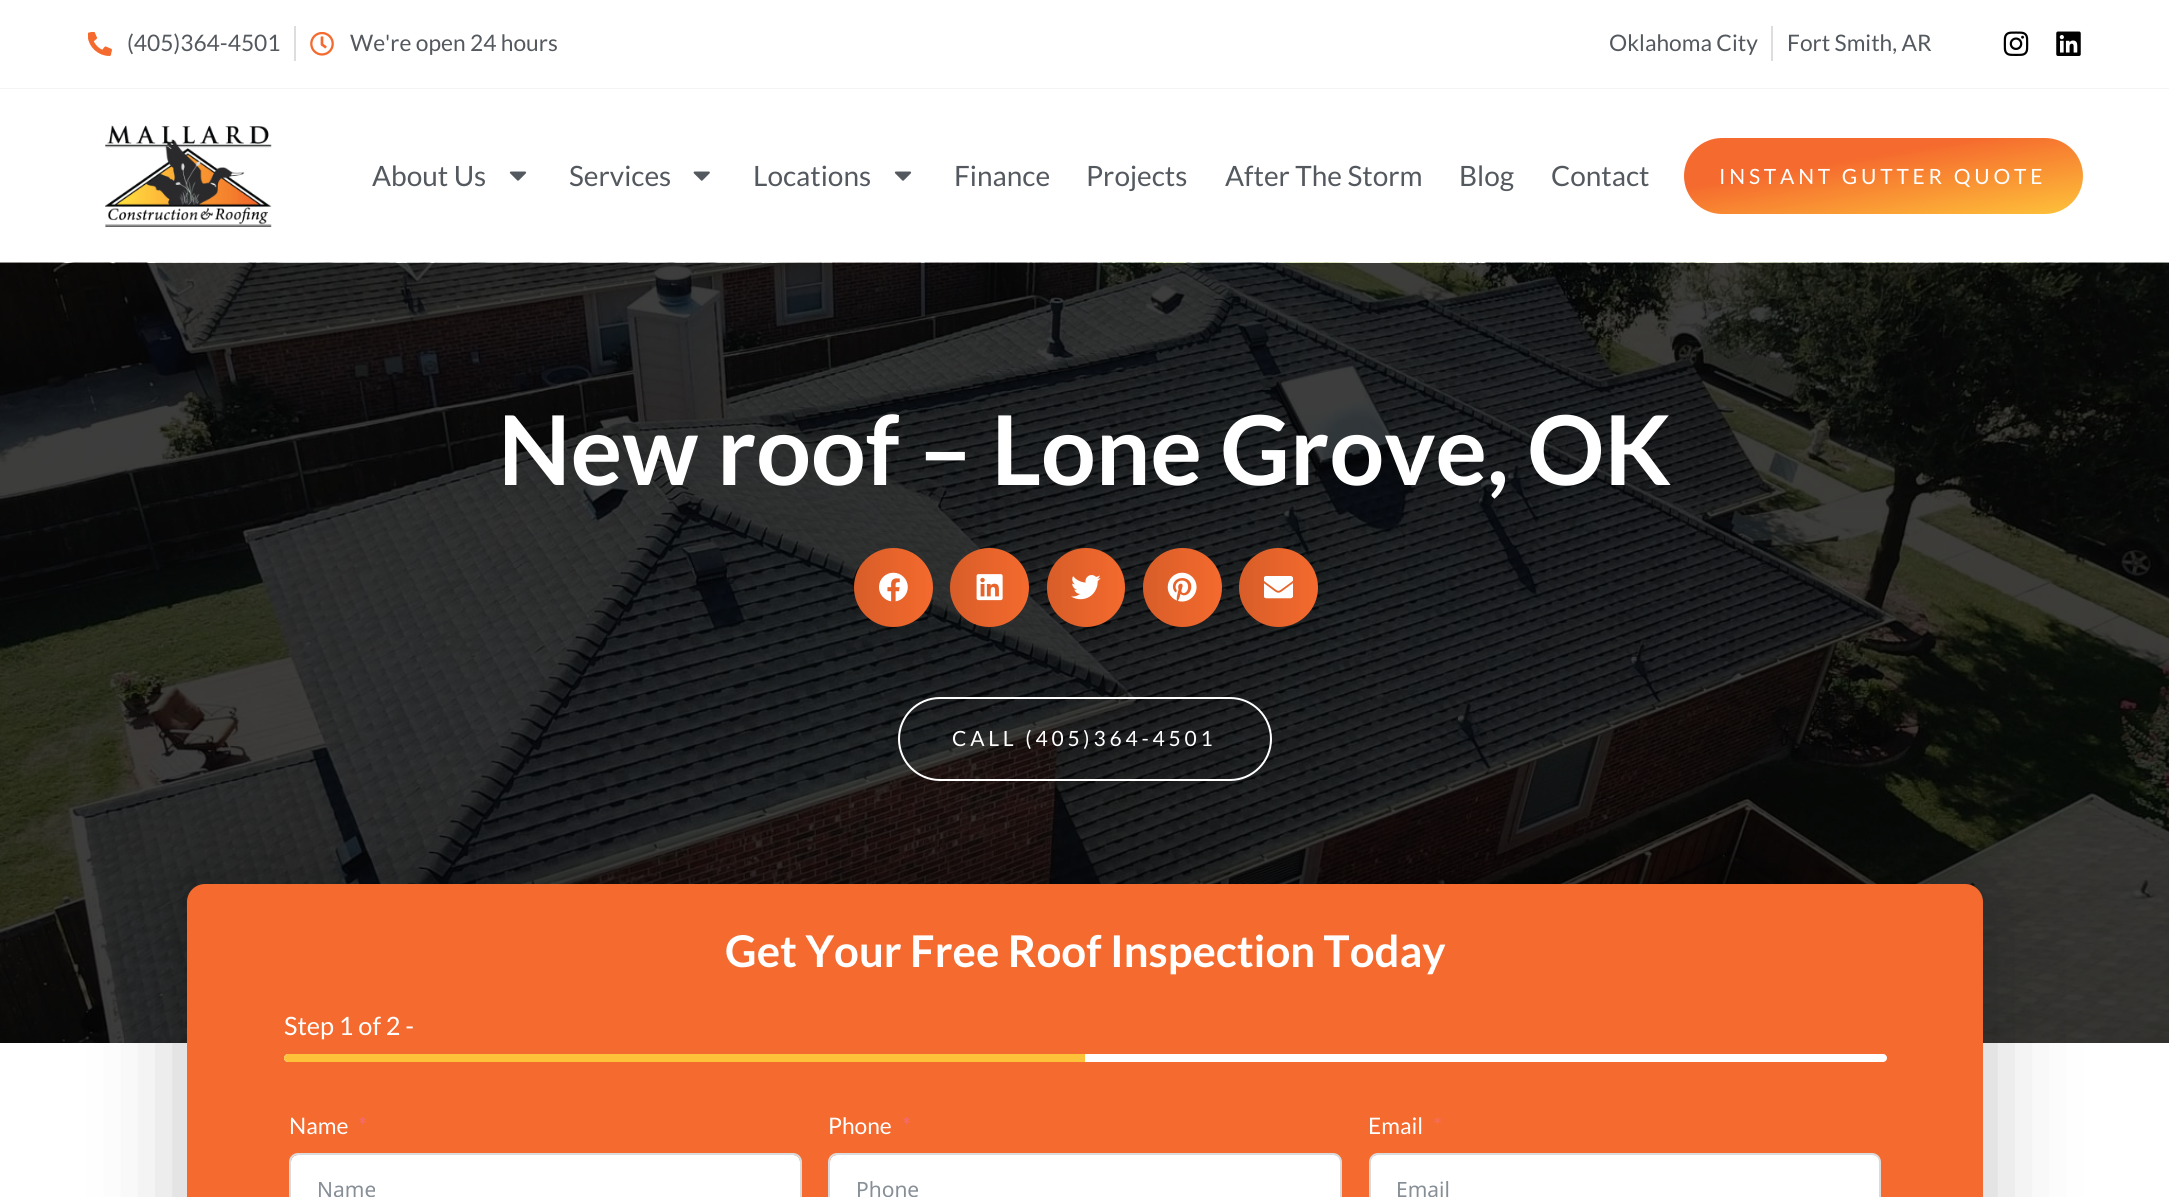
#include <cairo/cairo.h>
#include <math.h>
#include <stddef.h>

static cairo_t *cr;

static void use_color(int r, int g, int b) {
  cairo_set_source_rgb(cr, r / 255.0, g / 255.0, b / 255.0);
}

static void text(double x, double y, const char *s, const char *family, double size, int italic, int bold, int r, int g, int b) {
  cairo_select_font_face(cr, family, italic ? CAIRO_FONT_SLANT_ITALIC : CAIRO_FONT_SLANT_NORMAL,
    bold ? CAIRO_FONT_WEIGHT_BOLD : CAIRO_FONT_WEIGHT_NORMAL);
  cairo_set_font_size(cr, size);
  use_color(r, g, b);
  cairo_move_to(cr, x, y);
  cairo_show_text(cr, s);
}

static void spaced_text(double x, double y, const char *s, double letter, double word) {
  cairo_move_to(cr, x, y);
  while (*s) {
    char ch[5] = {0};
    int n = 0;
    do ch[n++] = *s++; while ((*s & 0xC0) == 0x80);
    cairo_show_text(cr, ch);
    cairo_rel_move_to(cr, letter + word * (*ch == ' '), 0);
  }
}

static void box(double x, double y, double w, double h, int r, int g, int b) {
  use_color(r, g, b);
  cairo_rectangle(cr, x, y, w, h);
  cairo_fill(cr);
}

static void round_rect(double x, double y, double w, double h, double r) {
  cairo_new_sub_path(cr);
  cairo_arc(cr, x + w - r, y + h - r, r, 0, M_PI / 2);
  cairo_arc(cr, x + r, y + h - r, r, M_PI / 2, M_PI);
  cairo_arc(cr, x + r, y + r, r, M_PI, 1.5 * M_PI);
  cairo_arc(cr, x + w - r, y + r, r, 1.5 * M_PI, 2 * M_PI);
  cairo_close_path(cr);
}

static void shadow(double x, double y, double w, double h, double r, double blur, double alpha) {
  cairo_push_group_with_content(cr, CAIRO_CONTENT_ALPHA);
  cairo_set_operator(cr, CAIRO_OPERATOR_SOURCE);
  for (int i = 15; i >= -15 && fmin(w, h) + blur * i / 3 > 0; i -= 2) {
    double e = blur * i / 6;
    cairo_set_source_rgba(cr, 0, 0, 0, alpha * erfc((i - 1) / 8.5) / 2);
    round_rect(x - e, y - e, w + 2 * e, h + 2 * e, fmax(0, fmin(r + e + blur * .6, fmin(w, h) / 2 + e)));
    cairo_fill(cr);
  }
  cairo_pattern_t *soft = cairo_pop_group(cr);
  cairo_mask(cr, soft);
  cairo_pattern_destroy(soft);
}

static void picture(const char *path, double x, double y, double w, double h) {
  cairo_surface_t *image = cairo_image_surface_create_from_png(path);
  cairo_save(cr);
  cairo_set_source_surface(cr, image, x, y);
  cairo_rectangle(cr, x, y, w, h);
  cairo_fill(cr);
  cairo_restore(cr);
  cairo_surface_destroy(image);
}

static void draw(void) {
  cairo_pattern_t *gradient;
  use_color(255, 255, 255);
  cairo_paint(cr);
  box(0, 88, 2169, 1, 244, 244, 244);
  picture("img_01.png", 88, 32, 24, 24);
  box(294, 26, 2, 35, 221, 221, 221);
  picture("img_02.png", 310, 32, 24, 24);
  box(1771, 26, 2, 35, 221, 221, 221);
  picture("img_03.png", 2003, 31, 26, 25);
  picture("img_04.png", 2056, 31, 25, 25);
  picture("img_05.png", 105, 125, 167, 102);
  picture("img_06.png", 509, 171, 18, 10);
  picture("img_07.png", 693, 171, 17, 10);
  picture("img_06.png", 894, 171, 18, 10);
  gradient = cairo_pattern_create_linear(1871, 105, 1895, 246);
  cairo_pattern_add_color_stop_rgba(gradient, 0.35, 0.961, 0.416, 0.18, 1);
  cairo_pattern_add_color_stop_rgba(gradient, 1, 0.996, 0.761, 0.227, 1);
  cairo_set_source(cr, gradient);
  cairo_pattern_destroy(gradient);
  round_rect(1684, 138, 399, 76, 38);
  cairo_fill(cr);
  picture("img_08.png", 0, 262, 2169, 781);
  use_color(245, 106, 46);
  cairo_arc(cr, 893.5, 587.5, 39.5, 0, 2 * M_PI);
  cairo_fill(cr);
  gradient = cairo_pattern_create_linear(854, 587, 933, 587);
  cairo_pattern_add_color_stop_rgba(gradient, 0, 0, 0, 0, 0.12);
  cairo_pattern_add_color_stop_rgba(gradient, 1, 0, 0, 0, 0);
  cairo_set_source(cr, gradient);
  cairo_pattern_destroy(gradient);
  cairo_arc(cr, 893.5, 587.5, 39.5, 0, 2 * M_PI);
  cairo_fill(cr);
  picture("img_09.png", 879, 572, 29, 30);
  use_color(245, 106, 46);
  cairo_arc(cr, 989.5, 587.5, 39.5, 0, 2 * M_PI);
  cairo_fill(cr);
  gradient = cairo_pattern_create_linear(950, 587, 1029, 587);
  cairo_pattern_add_color_stop_rgba(gradient, 0, 0, 0, 0, 0.12);
  cairo_pattern_add_color_stop_rgba(gradient, 1, 0, 0, 0, 0);
  cairo_set_source(cr, gradient);
  cairo_pattern_destroy(gradient);
  cairo_arc(cr, 989.5, 587.5, 39.5, 0, 2 * M_PI);
  cairo_fill(cr);
  picture("img_10.png", 976, 574, 27, 27);
  use_color(245, 106, 46);
  round_rect(1047, 548, 78, 79, 39);
  cairo_fill(cr);
  gradient = cairo_pattern_create_linear(1047, 587, 1125, 587);
  cairo_pattern_add_color_stop_rgba(gradient, 0, 0, 0, 0, 0.12);
  cairo_pattern_add_color_stop_rgba(gradient, 1, 0, 0, 0, 0);
  cairo_set_source(cr, gradient);
  cairo_pattern_destroy(gradient);
  round_rect(1047, 548, 78, 79, 39);
  cairo_fill(cr);
  picture("img_11.png", 1071, 575, 30, 25);
  use_color(245, 106, 46);
  cairo_arc(cr, 1182.5, 587.5, 39.5, 0, 2 * M_PI);
  cairo_fill(cr);
  gradient = cairo_pattern_create_linear(1143, 587, 1222, 587);
  cairo_pattern_add_color_stop_rgba(gradient, 0, 0, 0, 0, 0.12);
  cairo_pattern_add_color_stop_rgba(gradient, 1, 0, 0, 0, 0);
  cairo_set_source(cr, gradient);
  cairo_pattern_destroy(gradient);
  cairo_arc(cr, 1182.5, 587.5, 39.5, 0, 2 * M_PI);
  cairo_fill(cr);
  picture("img_12.png", 1167, 572, 30, 30);
  use_color(245, 106, 46);
  cairo_arc(cr, 1278.5, 587.5, 39.5, 0, 2 * M_PI);
  cairo_fill(cr);
  gradient = cairo_pattern_create_linear(1239, 587, 1318, 587);
  cairo_pattern_add_color_stop_rgba(gradient, 0, 0, 0, 0, 0.12);
  cairo_pattern_add_color_stop_rgba(gradient, 1, 0, 0, 0, 0);
  cairo_set_source(cr, gradient);
  cairo_pattern_destroy(gradient);
  cairo_arc(cr, 1278.5, 587.5, 39.5, 0, 2 * M_PI);
  cairo_fill(cr);
  picture("img_13.png", 1264, 576, 29, 23);
  round_rect(899, 698, 372, 82, 41);
  use_color(255, 255, 255);
  cairo_stroke(cr);
  use_color(0, 0, 0);
  shadow(198, 894, 1774, 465, 7, 51.5, 0.29);
  use_color(245, 106, 46);
  round_rect(187, 884, 1796, 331, 18);
  cairo_fill(cr);
  use_color(255, 255, 255);
  round_rect(284, 1054, 1603, 8, 4);
  cairo_fill(cr);
  use_color(254, 194, 58);
  cairo_new_path(cr);
  cairo_move_to(cr, 288, 1054);
  cairo_line_to(cr, 1085, 1054);
  cairo_line_to(cr, 1085, 1062);
  cairo_line_to(cr, 288, 1062);
  cairo_curve_to(cr, 286, 1062, 284, 1060, 284, 1058);
  cairo_curve_to(cr, 284, 1056, 286, 1054, 288, 1054);
  cairo_close_path(cr);
  cairo_fill(cr);
  use_color(255, 255, 255);
  round_rect(291, 1155, 509, 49, 7);
  cairo_fill(cr);
  round_rect(290, 1154, 511, 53, 8);
  use_color(218, 219, 221);
  cairo_stroke(cr);
  use_color(255, 255, 255);
  round_rect(830, 1155, 511, 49, 7);
  cairo_fill(cr);
  round_rect(829, 1154, 512, 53, 8);
  use_color(218, 219, 221);
  cairo_stroke(cr);
  use_color(255, 255, 255);
  round_rect(1370, 1155, 510, 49, 7);
  cairo_fill(cr);
  round_rect(1370, 1154, 510, 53, 8);
  use_color(218, 219, 221);
  cairo_stroke(cr);
  text(127, 51, "(405)364-4501", "Lato", 22.75, 0, 0, 84, 89, 95);
  text(350, 51, "We're open 24 hours", "Lato", 22.75, 0, 0, 84, 89, 95);
  text(1609, 51, "Oklahoma City", "Lato", 22.75, 0, 0, 84, 89, 95);
  text(1787, 51, "Fort Smith, AR", "Lato", 22.75, 0, 0, 84, 89, 95);
  text(372, 186, "About Us", "Lato", 28, 0, 0, 84, 89, 95);
  text(569, 186, "Services", "Lato", 28, 0, 0, 84, 89, 95);
  text(753, 186, "Locations", "Lato", 28, 0, 0, 84, 89, 95);
  text(954, 186, "Finance", "Lato", 28, 0, 0, 84, 89, 95);
  text(1086, 186, "Projects", "Lato", 28, 0, 0, 84, 89, 95);
  text(1225, 186, "After The Storm", "Lato", 28, 0, 0, 84, 89, 95);
  text(1459, 186, "Blog", "Lato", 28, 0, 0, 84, 89, 95);
  text(1551, 186, "Contact", "Lato", 28, 0, 0, 84, 89, 95);
  cairo_set_font_size(cr, 21);
  use_color(255, 255, 255);
  spaced_text(1719, 184, "INSTANT GUTTER QUOTE", 3.8, 0);
  text(498, 485, "New roof – Lone Grove, OK", "Lato", 96.25, 0, 1, 255, 255, 255);
  cairo_select_font_face(cr, "Lato", CAIRO_FONT_SLANT_NORMAL, CAIRO_FONT_WEIGHT_NORMAL);
  cairo_set_font_size(cr, 21);
  spaced_text(952, 746, "CALL (405)364-4501", 3.8, 0);
  text(725, 967, "Get Your Free Roof Inspection Today", "Lato", 43.75, 0, 1, 255, 255, 255);
  text(284, 1035, "Step 1 of 2 -", "Lato", 25.25, 0, 0, 255, 255, 255);
  text(289, 1134, "Name", "Lato", 22.75, 0, 0, 255, 255, 255);
  text(358, 1134, "*", "Lato", 22.75, 0, 0, 245, 108, 108);
  text(317, 1197, "Name", "Noto Sans", 21, 0, 0, 134, 142, 150);
  text(828, 1134, "Phone", "Lato", 22.75, 0, 0, 255, 255, 255);
  text(902, 1134, "*", "Lato", 22.75, 0, 0, 245, 108, 108);
  text(856, 1197, "Phone", "Noto Sans", 21, 0, 0, 134, 142, 150);
  text(1368, 1134, "Email", "Lato", 22.75, 0, 0, 255, 255, 255);
  text(1433, 1134, "*", "Lato", 22.75, 0, 0, 245, 108, 108);
  text(1396, 1197, "Email", "Noto Sans", 21, 0, 0, 134, 142, 150);
}

int main(void) {
  cairo_surface_t *surface = cairo_image_surface_create(CAIRO_FORMAT_RGB24, 2169, 1197);
  cr = cairo_create(surface);
  cairo_font_options_t *options = cairo_font_options_create();
  cairo_font_options_set_hint_metrics(options, CAIRO_HINT_METRICS_OFF);
  cairo_font_options_set_hint_style(options, CAIRO_HINT_STYLE_NONE);
  cairo_set_font_options(cr, options);
  cairo_set_miter_limit(cr, 4);
  draw();
  cairo_surface_write_to_png(surface, "out.png");
  cairo_font_options_destroy(options);
  cairo_destroy(cr);
  cairo_surface_destroy(surface);
  return 0;
}
